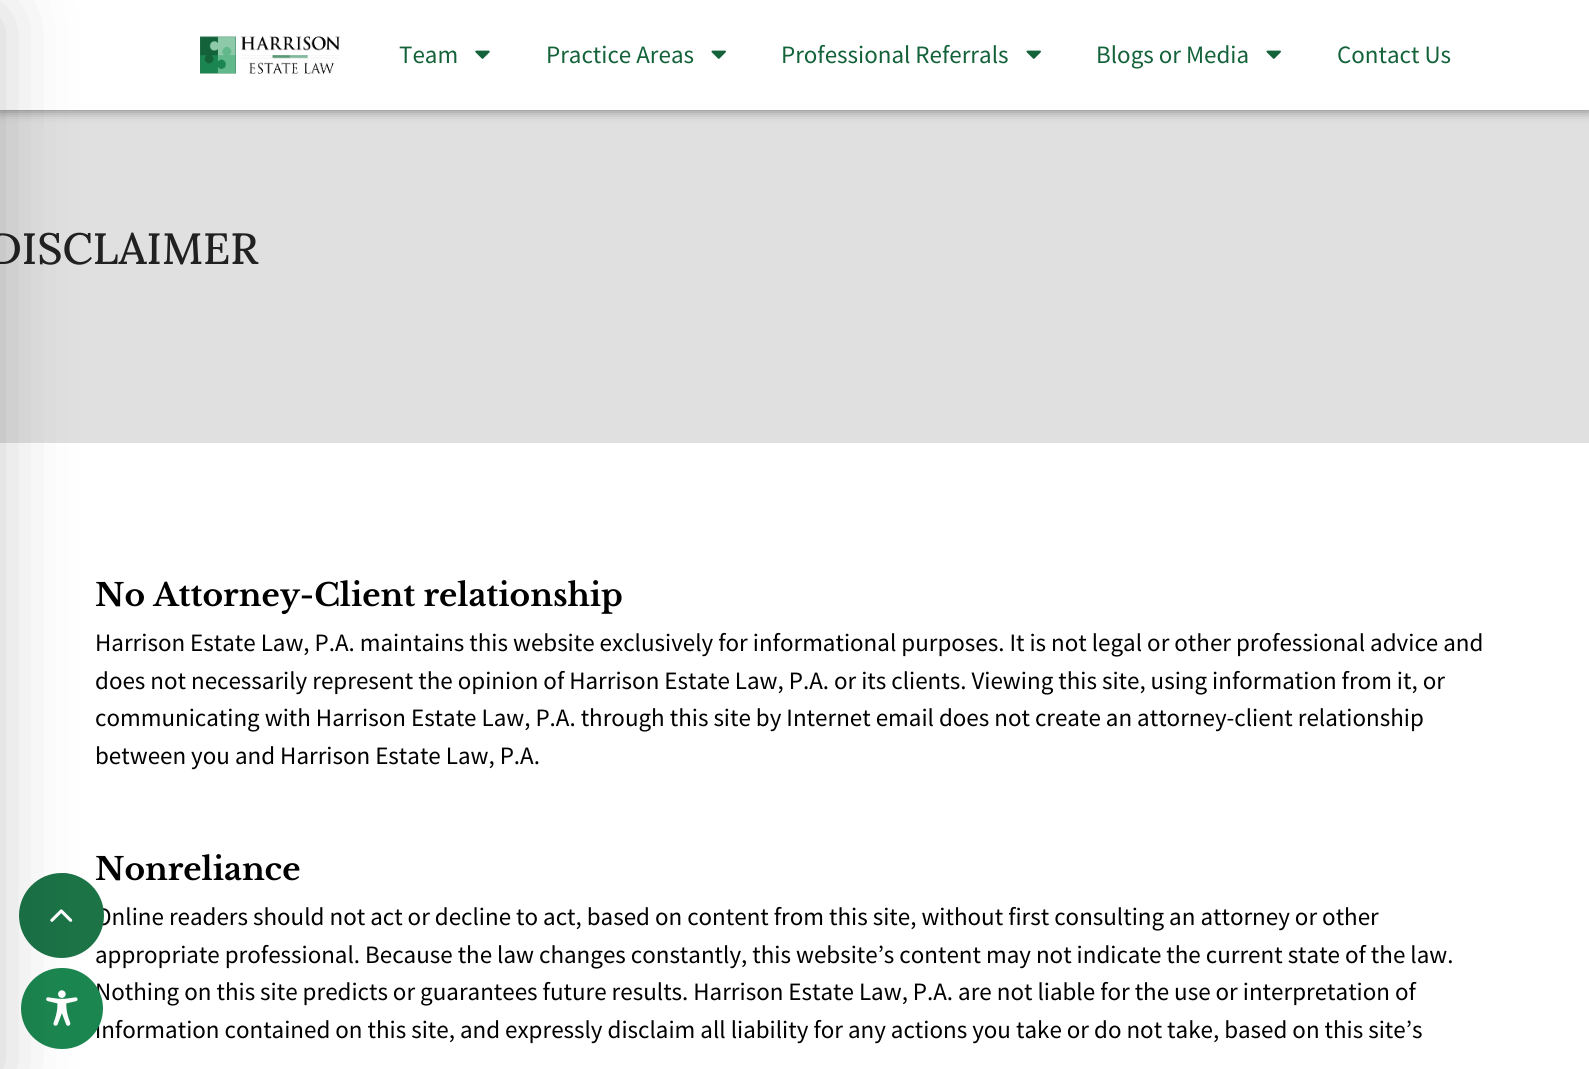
#include <cairo/cairo.h>
#include <math.h>
#include <stddef.h>

static cairo_t *cr;

static void use_color(int r, int g, int b) {
  cairo_set_source_rgb(cr, r / 255.0, g / 255.0, b / 255.0);
}

static void text(double x, double y, const char *s, const char *family, double size, int italic, int bold, int r, int g, int b) {
  cairo_select_font_face(cr, family, italic ? CAIRO_FONT_SLANT_ITALIC : CAIRO_FONT_SLANT_NORMAL,
    bold ? CAIRO_FONT_WEIGHT_BOLD : CAIRO_FONT_WEIGHT_NORMAL);
  cairo_set_font_size(cr, size);
  use_color(r, g, b);
  cairo_move_to(cr, x, y);
  cairo_show_text(cr, s);
}

static void box(double x, double y, double w, double h, int r, int g, int b) {
  use_color(r, g, b);
  cairo_rectangle(cr, x, y, w, h);
  cairo_fill(cr);
}

static void round_rect(double x, double y, double w, double h, double r) {
  cairo_new_sub_path(cr);
  cairo_arc(cr, x + w - r, y + h - r, r, 0, M_PI / 2);
  cairo_arc(cr, x + r, y + h - r, r, M_PI / 2, M_PI);
  cairo_arc(cr, x + r, y + r, r, M_PI, 1.5 * M_PI);
  cairo_arc(cr, x + w - r, y + r, r, 1.5 * M_PI, 2 * M_PI);
  cairo_close_path(cr);
}

static void shadow(double x, double y, double w, double h, double r, double blur, double alpha) {
  cairo_push_group_with_content(cr, CAIRO_CONTENT_ALPHA);
  cairo_set_operator(cr, CAIRO_OPERATOR_SOURCE);
  for (int i = 15; i >= -15 && fmin(w, h) + blur * i / 3 > 0; i -= 2) {
    double e = blur * i / 6;
    cairo_set_source_rgba(cr, 0, 0, 0, alpha * erfc((i - 1) / 8.5) / 2);
    round_rect(x - e, y - e, w + 2 * e, h + 2 * e, fmax(0, fmin(r + e + blur * .6, fmin(w, h) / 2 + e)));
    cairo_fill(cr);
  }
  cairo_pattern_t *soft = cairo_pop_group(cr);
  cairo_mask(cr, soft);
  cairo_pattern_destroy(soft);
}

static void picture(const char *path, double x, double y, double w, double h) {
  cairo_surface_t *image = cairo_image_surface_create_from_png(path);
  cairo_save(cr);
  cairo_set_source_surface(cr, image, x, y);
  cairo_rectangle(cr, x, y, w, h);
  cairo_fill(cr);
  cairo_restore(cr);
  cairo_surface_destroy(image);
}

static void draw(void) {
  use_color(255, 255, 255);
  cairo_paint(cr);
  box(0, 110, 1589, 333, 224, 224, 224);
  use_color(0, 0, 0);
  shadow(0, 0, 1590, 110, 0, 6, 0.5);
  box(0, 0, 1589, 110, 255, 255, 255);
  picture("img_01.png", 200, 36, 140, 38);
  picture("img_02.png", 475, 50, 15, 9);
  picture("img_03.png", 711, 50, 15, 9);
  picture("img_03.png", 1026, 50, 15, 9);
  picture("img_03.png", 1266, 50, 15, 9);
  text(399, 63, "Team", "Source Sans Pro", 25, 0, 0, 20, 98, 58);
  text(546, 63, "Practice Areas", "Source Sans Pro", 25, 0, 0, 20, 98, 58);
  text(781, 63, "Professional Referrals", "Source Sans Pro", 25, 0, 0, 20, 98, 58);
  text(1096, 63, "Blogs or Media", "Source Sans Pro", 25, 0, 0, 20, 98, 58);
  text(1337, 63, "Contact Us", "Source Sans Pro", 25, 0, 0, 20, 98, 58);
  text(-11, 264, "DISCLAIMER", "Lora Medium", 43.75, 0, 0, 33, 33, 33);
  text(95, 606, "No Attorney-Client relationship", "Libre Baskerville", 31.25, 0, 1, 0, 0, 0);
  text(95, 651, "Harrison Estate Law, P.A. maintains this website exclusively for informational purposes. It is not legal or other professional advice and", "Source Sans Pro", 25, 0, 0, 0, 0, 0);
  text(95, 689, "does not necessarily represent the opinion of Harrison Estate Law, P.A. or its clients. Viewing this site, using information from it, or", "Source Sans Pro", 25, 0, 0, 0, 0, 0);
  text(95, 726, "communicating with Harrison Estate Law, P.A. through this site by Internet email does not create an attorney-client relationship", "Source Sans Pro", 25, 0, 0, 0, 0, 0);
  text(95, 764, "between you and Harrison Estate Law, P.A.", "Source Sans Pro", 25, 0, 0, 0, 0, 0);
  text(95, 880, "Nonreliance", "Libre Baskerville", 31.25, 0, 1, 0, 0, 0);
  text(95, 925, "Online readers should not act or decline to act, based on content from this site, without first consulting an attorney or other", "Source Sans Pro", 25, 0, 0, 0, 0, 0);
  text(95, 963, "appropriate professional. Because the law changes constantly, this website’s content may not indicate the current state of the law.", "Source Sans Pro", 25, 0, 0, 0, 0, 0);
  text(95, 1000, "Nothing on this site predicts or guarantees future results. Harrison Estate Law, P.A. are not liable for the use or interpretation of", "Source Sans Pro", 25, 0, 0, 0, 0, 0);
  text(95, 1038, "information contained on this site, and expressly disclaim all liability for any actions you take or do not take, based on this site’s", "Source Sans Pro", 25, 0, 0, 0, 0, 0);
  use_color(27, 115, 70);
  cairo_new_path(cr);
  cairo_arc(cr, 61.5, 915.5, 42.5, 0, 2 * M_PI);
  cairo_fill(cr);
  cairo_new_path(cr);
  cairo_move_to(cr, 61, 874);
  cairo_curve_to(cr, 68, 874, 74, 875.5, 79.5, 878.5);
  cairo_set_line_width(cr, 1.7);
  cairo_stroke(cr);
  picture("img_04.png", 50, 909, 23, 13);
  use_color(27, 134, 80);
  round_rect(21, 968, 82, 81, 40.5);
  cairo_fill(cr);
  picture("img_05.png", 46, 990, 32, 36);
  use_color(0, 0, 0);
  shadow(-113, 13, 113, 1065, 0, 37.5, 0.2);
}

int main(void) {
  cairo_surface_t *surface = cairo_image_surface_create(CAIRO_FORMAT_RGB24, 1589, 1069);
  cr = cairo_create(surface);
  cairo_font_options_t *options = cairo_font_options_create();
  cairo_font_options_set_hint_metrics(options, CAIRO_HINT_METRICS_OFF);
  cairo_font_options_set_hint_style(options, CAIRO_HINT_STYLE_NONE);
  cairo_set_font_options(cr, options);
  cairo_set_miter_limit(cr, 4);
  draw();
  cairo_surface_write_to_png(surface, "out.png");
  cairo_font_options_destroy(options);
  cairo_destroy(cr);
  cairo_surface_destroy(surface);
  return 0;
}
